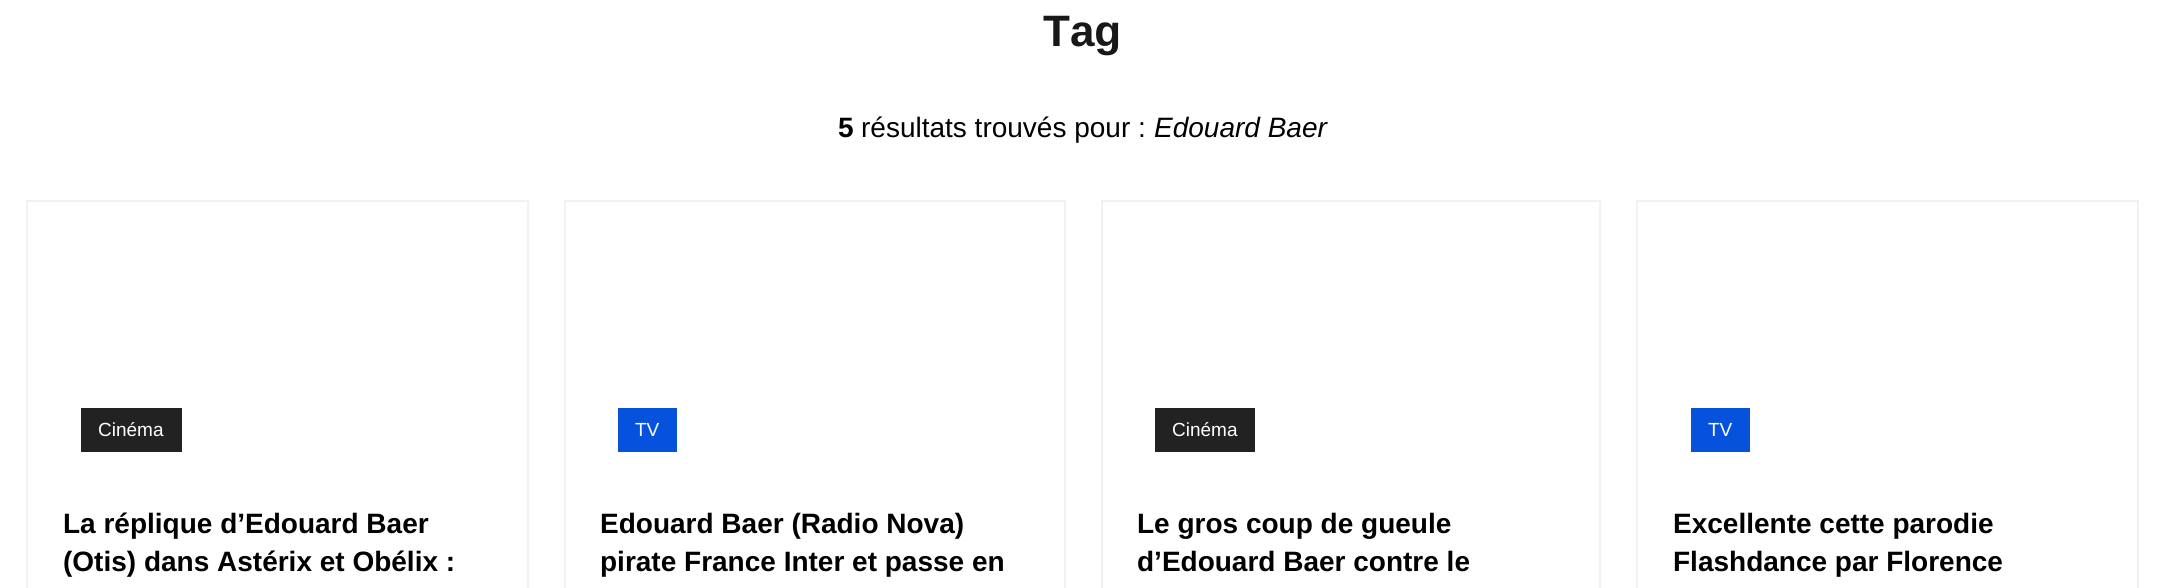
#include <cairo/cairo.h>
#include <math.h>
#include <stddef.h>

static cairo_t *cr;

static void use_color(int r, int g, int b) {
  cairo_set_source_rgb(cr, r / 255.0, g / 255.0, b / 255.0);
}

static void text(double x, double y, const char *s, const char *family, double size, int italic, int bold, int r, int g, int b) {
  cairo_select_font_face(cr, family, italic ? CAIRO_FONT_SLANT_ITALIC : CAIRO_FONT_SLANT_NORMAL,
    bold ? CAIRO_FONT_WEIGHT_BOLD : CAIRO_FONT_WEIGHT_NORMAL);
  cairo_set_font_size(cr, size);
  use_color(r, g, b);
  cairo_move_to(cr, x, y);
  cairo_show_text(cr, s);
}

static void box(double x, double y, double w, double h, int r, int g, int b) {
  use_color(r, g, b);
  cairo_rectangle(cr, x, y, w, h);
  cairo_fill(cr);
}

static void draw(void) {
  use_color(255, 255, 255);
  cairo_paint(cr);
  cairo_rectangle(cr, 27, 201, 501, 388);
  use_color(241, 241, 241);
  cairo_stroke(cr);
  box(81, 408, 101, 44, 34, 34, 34);
  cairo_rectangle(cr, 565, 201, 500, 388);
  use_color(241, 241, 241);
  cairo_stroke(cr);
  box(618, 408, 59, 44, 6, 82, 221);
  cairo_rectangle(cr, 1102, 201, 498, 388);
  use_color(241, 241, 241);
  cairo_stroke(cr);
  box(1155, 408, 100, 44, 34, 34, 34);
  cairo_rectangle(cr, 1637, 201, 501, 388);
  use_color(241, 241, 241);
  cairo_stroke(cr);
  box(1691, 408, 59, 44, 6, 82, 221);
  text(1043, 46, "Tag", "Liberation Sans", 44, 0, 1, 24, 24, 24);
  text(838, 137, "5", "Liberation Sans", 28, 0, 1, 0, 0, 0);
  text(861, 137, "résultats trouvés pour :", "Liberation Sans", 28, 0, 0, 0, 0, 0);
  text(1154, 137, "Edouard Baer", "Liberation Sans", 28, 1, 0, 0, 0, 0);
  text(98, 436, "Cinéma", "Liberation Sans", 19, 0, 0, 255, 255, 255);
  text(63, 533, "La réplique d’Edouard Baer", "Liberation Sans", 28, 0, 1, 0, 0, 0);
  text(63, 571, "(Otis) dans Astérix et Obélix :", "Liberation Sans", 28, 0, 1, 0, 0, 0);
  text(635, 436, "TV", "Liberation Sans", 19, 0, 0, 255, 255, 255);
  text(600, 533, "Edouard Baer (Radio Nova)", "Liberation Sans", 28, 0, 1, 0, 0, 0);
  text(600, 571, "pirate France Inter et passe en", "Liberation Sans", 28, 0, 1, 0, 0, 0);
  text(1172, 436, "Cinéma", "Liberation Sans", 19, 0, 0, 255, 255, 255);
  text(1137, 533, "Le gros coup de gueule", "Liberation Sans", 28, 0, 1, 0, 0, 0);
  text(1137, 571, "d’Edouard Baer contre le", "Liberation Sans", 28, 0, 1, 0, 0, 0);
  text(1708, 436, "TV", "Liberation Sans", 19, 0, 0, 255, 255, 255);
  text(1673, 533, "Excellente cette parodie", "Liberation Sans", 28, 0, 1, 0, 0, 0);
  text(1673, 571, "Flashdance par Florence", "Liberation Sans", 28, 0, 1, 0, 0, 0);
}

int main(void) {
  cairo_surface_t *surface = cairo_image_surface_create(CAIRO_FORMAT_RGB24, 2164, 588);
  cr = cairo_create(surface);
  cairo_font_options_t *options = cairo_font_options_create();
  cairo_font_options_set_hint_metrics(options, CAIRO_HINT_METRICS_OFF);
  cairo_font_options_set_hint_style(options, CAIRO_HINT_STYLE_NONE);
  cairo_set_font_options(cr, options);
  cairo_set_miter_limit(cr, 4);
  draw();
  cairo_surface_write_to_png(surface, "out.png");
  cairo_font_options_destroy(options);
  cairo_destroy(cr);
  cairo_surface_destroy(surface);
  return 0;
}
